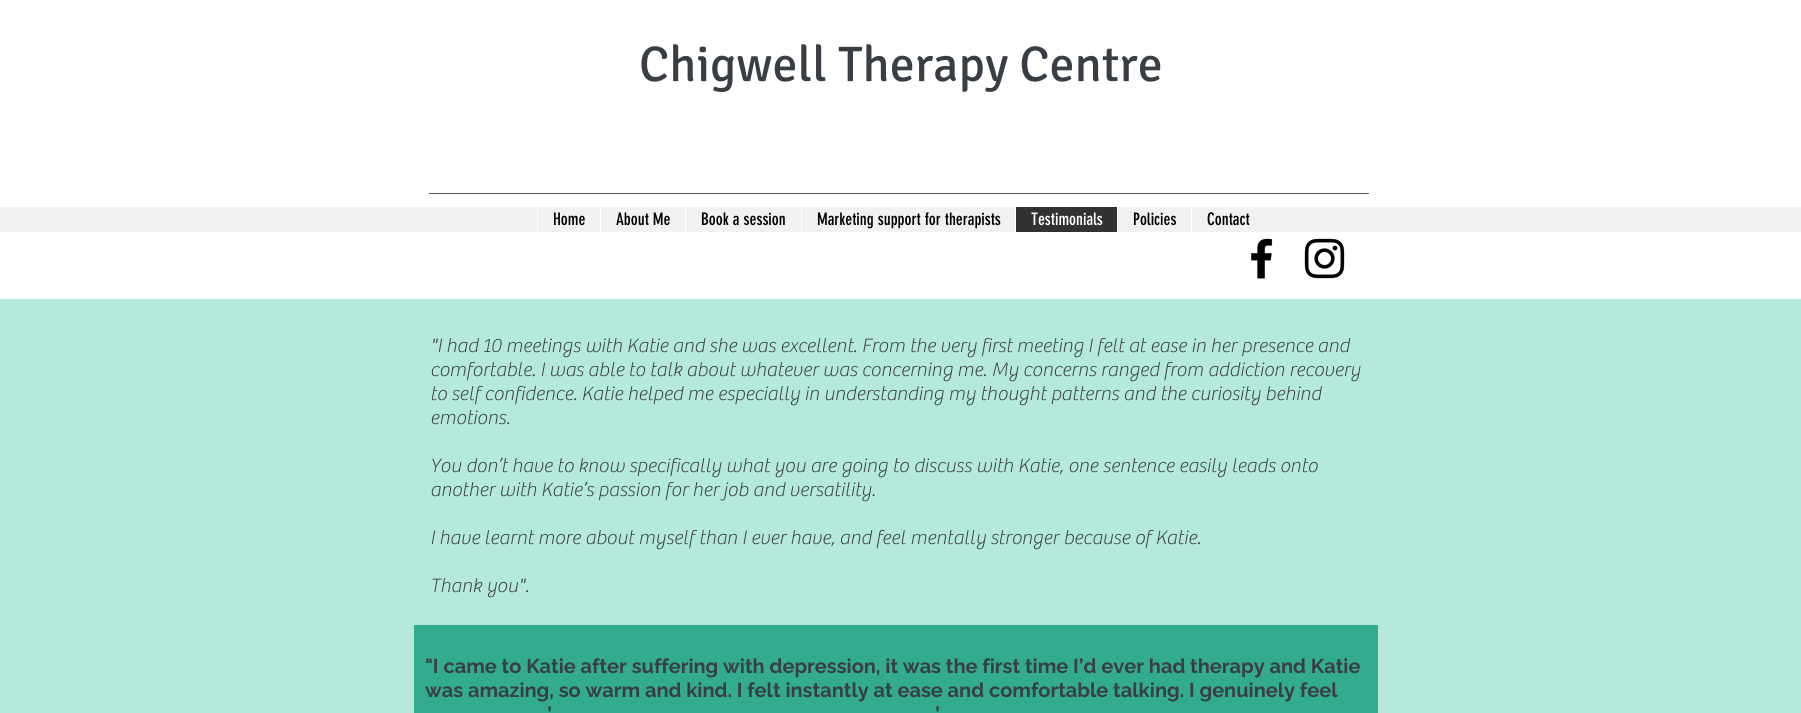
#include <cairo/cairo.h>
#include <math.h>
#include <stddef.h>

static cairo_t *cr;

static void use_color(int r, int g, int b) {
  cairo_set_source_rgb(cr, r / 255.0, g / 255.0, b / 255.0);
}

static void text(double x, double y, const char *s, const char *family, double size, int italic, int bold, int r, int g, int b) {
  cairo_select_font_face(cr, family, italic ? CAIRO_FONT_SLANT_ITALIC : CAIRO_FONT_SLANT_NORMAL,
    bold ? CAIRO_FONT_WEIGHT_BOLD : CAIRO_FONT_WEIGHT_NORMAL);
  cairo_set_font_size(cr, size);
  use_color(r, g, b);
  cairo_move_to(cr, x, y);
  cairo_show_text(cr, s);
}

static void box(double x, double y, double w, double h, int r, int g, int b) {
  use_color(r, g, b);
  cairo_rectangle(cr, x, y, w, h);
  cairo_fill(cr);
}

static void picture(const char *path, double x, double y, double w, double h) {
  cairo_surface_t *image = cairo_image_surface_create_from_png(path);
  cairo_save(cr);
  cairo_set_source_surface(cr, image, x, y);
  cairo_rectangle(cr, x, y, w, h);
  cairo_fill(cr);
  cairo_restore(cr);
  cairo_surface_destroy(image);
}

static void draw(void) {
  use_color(181, 233, 220);
  cairo_paint(cr);
  box(0, 0, 1801, 299, 255, 255, 255);
  box(429, 193, 940, 1, 87, 91, 96);
  box(0, 207, 1801, 25, 241, 241, 241);
  box(537, 207, 1, 25, 255, 255, 255);
  box(600, 207, 1, 25, 255, 255, 255);
  box(685, 207, 1, 25, 255, 255, 255);
  box(801, 207, 1, 25, 255, 255, 255);
  box(1016, 207, 101, 25, 50, 50, 50);
  box(1015, 207, 1, 25, 255, 255, 255);
  box(1117, 207, 1, 25, 255, 255, 255);
  box(1191, 207, 1, 25, 255, 255, 255);
  picture("img_01.png", 1251, 238, 22, 41);
  picture("img_02.png", 1304, 238, 41, 41);
  box(414, 625, 964, 88, 51, 171, 142);
  text(639, 81, "Chigwell Therapy Centre", "Signika", 50, 0, 0, 57, 62, 68);
  text(553, 225, "Home", "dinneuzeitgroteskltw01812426", 17, 0, 0, 0, 0, 0);
  text(616, 225, "About Me", "dinneuzeitgroteskltw01812426", 17, 0, 0, 0, 0, 0);
  text(701, 225, "Book a session", "dinneuzeitgroteskltw01812426", 17, 0, 0, 0, 0, 0);
  text(817, 225, "Marketing support for therapists", "dinneuzeitgroteskltw01812426", 17, 0, 0, 0, 0, 0);
  text(1031, 225, "Testimonials", "dinneuzeitgroteskltw01812426", 17, 0, 0, 255, 255, 255);
  text(1133, 225, "Policies", "dinneuzeitgroteskltw01812426", 17, 0, 0, 0, 0, 0);
  text(1207, 225, "Contact", "dinneuzeitgroteskltw01812426", 17, 0, 0, 0, 0, 0);
  text(430, 352, "\"I had 10 meetings with Katie and she was excellent. From the very first meeting I felt at ease in her presence and", "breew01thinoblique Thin", 20, 0, 0, 57, 62, 68);
  text(430, 376, "comfortable. I was able to talk about whatever was concerning me. My concerns ranged from addiction recovery", "breew01thinoblique Thin", 20, 0, 0, 57, 62, 68);
  text(430, 400, "to self confidence. Katie helped me especially in understanding my thought patterns and the curiosity behind", "breew01thinoblique Thin", 20, 0, 0, 57, 62, 68);
  text(430, 424, "emotions.", "breew01thinoblique Thin", 20, 0, 0, 57, 62, 68);
  text(430, 472, "You don’t have to know specifically what you are going to discuss with Katie, one sentence easily leads onto", "breew01thinoblique Thin", 20, 0, 0, 57, 62, 68);
  text(430, 496, "another with Katie’s passion for her job and versatility.", "breew01thinoblique Thin", 20, 0, 0, 57, 62, 68);
  text(430, 544, "I have learnt more about myself than I ever have, and feel mentally stronger because of Katie.", "breew01thinoblique Thin", 20, 0, 0, 57, 62, 68);
  text(430, 592, "Thank you\".", "breew01thinoblique Thin", 20, 0, 0, 57, 62, 68);
  text(425, 673, "\"I came to Katie after suffering with depression, it was the first time I’d ever had therapy and Katie", "Raleway", 20, 0, 1, 57, 62, 68);
  text(425, 697, "was amazing, so warm and kind. I felt instantly at ease and comfortable talking. I genuinely feel", "Raleway", 20, 0, 1, 57, 62, 68);
  text(547, 721, "’", "Raleway", 20, 0, 1, 57, 62, 68);
  text(935, 721, "’", "Raleway", 20, 0, 1, 57, 62, 68);
}

int main(void) {
  cairo_surface_t *surface = cairo_image_surface_create(CAIRO_FORMAT_RGB24, 1801, 713);
  cr = cairo_create(surface);
  cairo_font_options_t *options = cairo_font_options_create();
  cairo_font_options_set_hint_metrics(options, CAIRO_HINT_METRICS_OFF);
  cairo_font_options_set_hint_style(options, CAIRO_HINT_STYLE_NONE);
  cairo_set_font_options(cr, options);
  cairo_set_miter_limit(cr, 4);
  draw();
  cairo_surface_write_to_png(surface, "out.png");
  cairo_font_options_destroy(options);
  cairo_destroy(cr);
  cairo_surface_destroy(surface);
  return 0;
}
